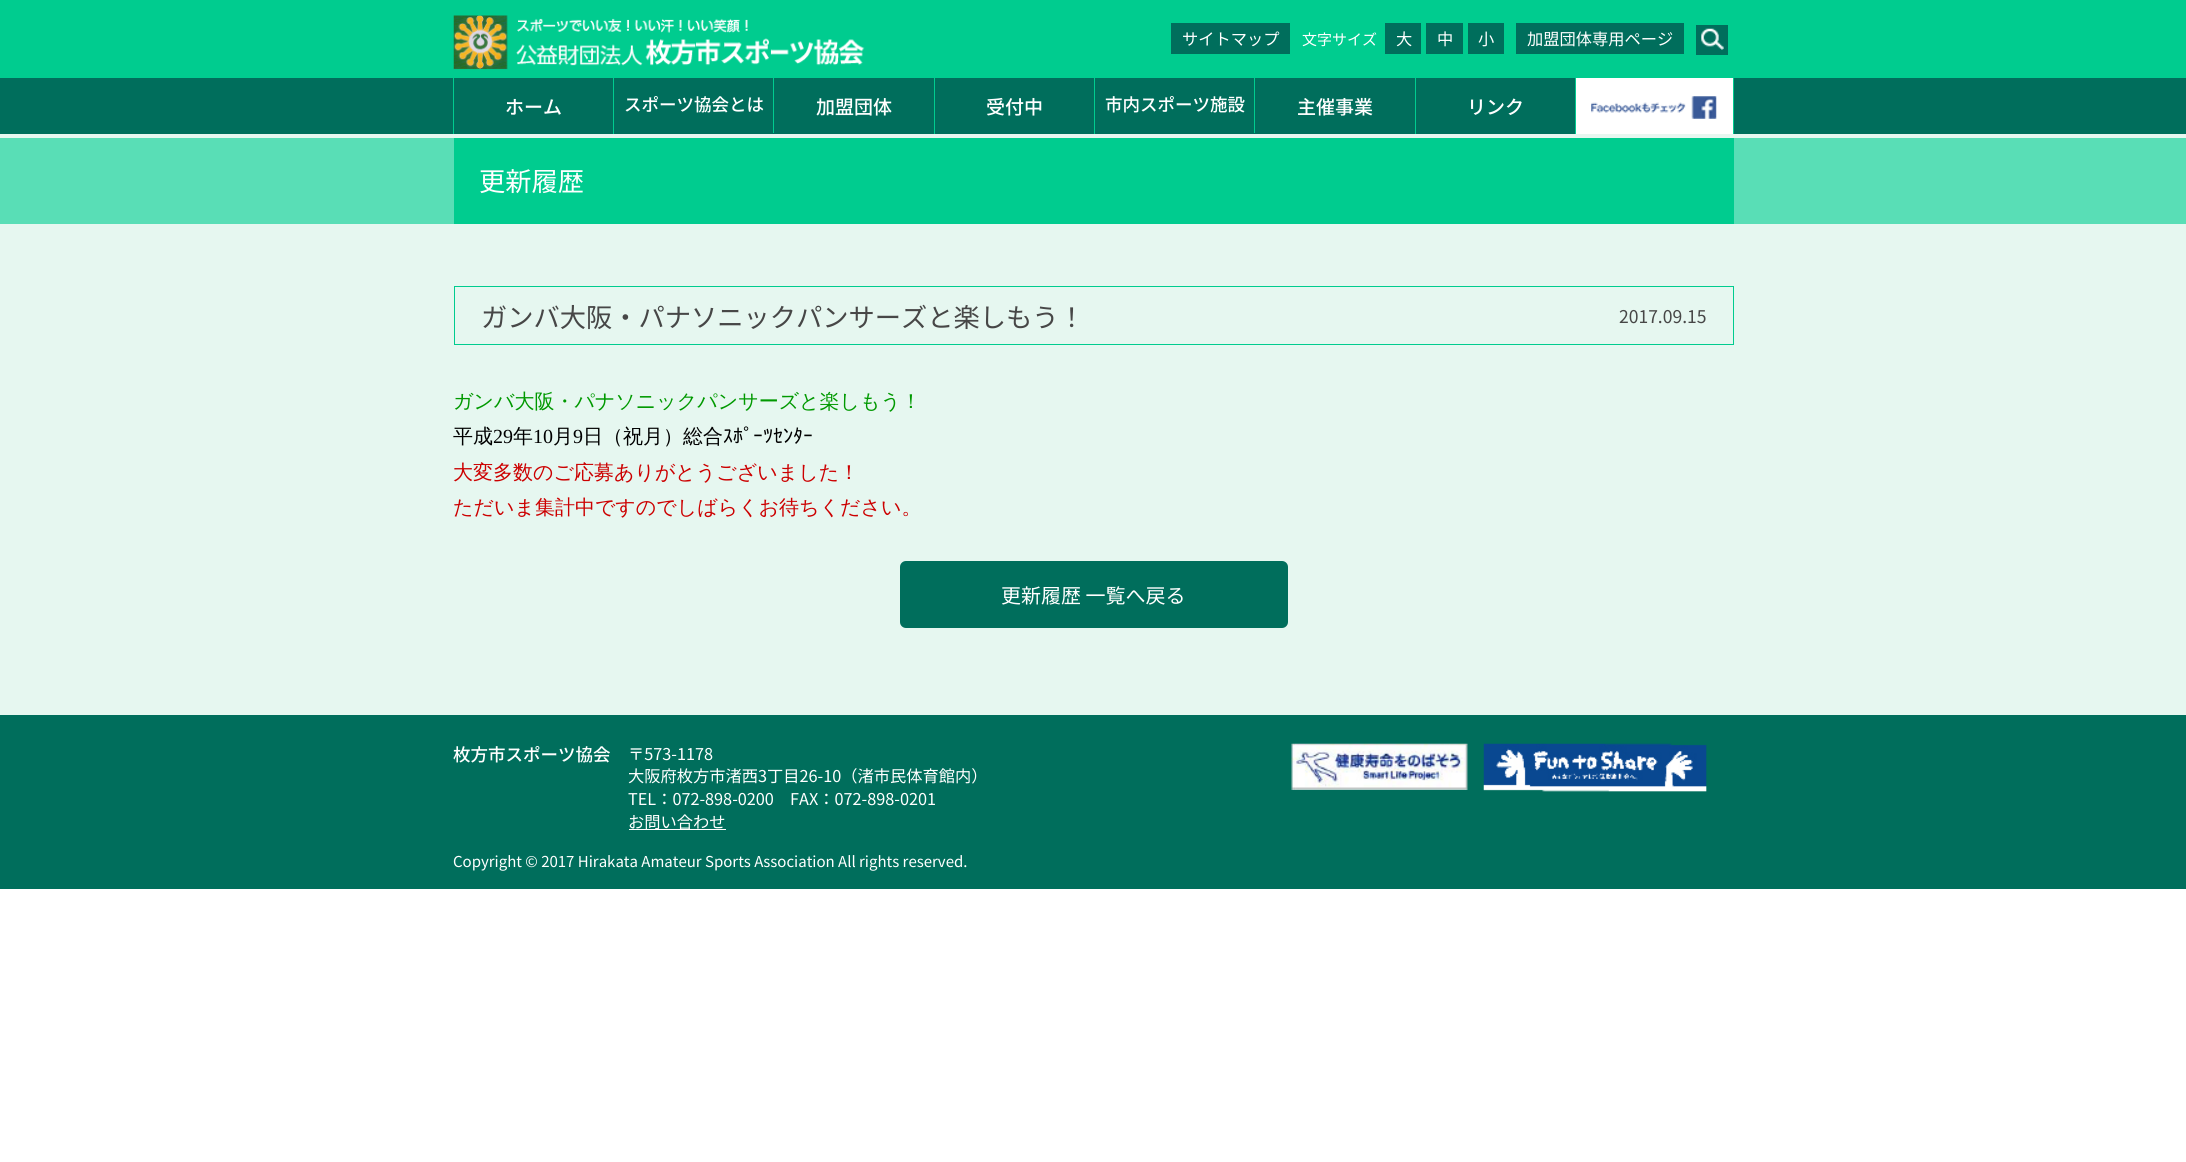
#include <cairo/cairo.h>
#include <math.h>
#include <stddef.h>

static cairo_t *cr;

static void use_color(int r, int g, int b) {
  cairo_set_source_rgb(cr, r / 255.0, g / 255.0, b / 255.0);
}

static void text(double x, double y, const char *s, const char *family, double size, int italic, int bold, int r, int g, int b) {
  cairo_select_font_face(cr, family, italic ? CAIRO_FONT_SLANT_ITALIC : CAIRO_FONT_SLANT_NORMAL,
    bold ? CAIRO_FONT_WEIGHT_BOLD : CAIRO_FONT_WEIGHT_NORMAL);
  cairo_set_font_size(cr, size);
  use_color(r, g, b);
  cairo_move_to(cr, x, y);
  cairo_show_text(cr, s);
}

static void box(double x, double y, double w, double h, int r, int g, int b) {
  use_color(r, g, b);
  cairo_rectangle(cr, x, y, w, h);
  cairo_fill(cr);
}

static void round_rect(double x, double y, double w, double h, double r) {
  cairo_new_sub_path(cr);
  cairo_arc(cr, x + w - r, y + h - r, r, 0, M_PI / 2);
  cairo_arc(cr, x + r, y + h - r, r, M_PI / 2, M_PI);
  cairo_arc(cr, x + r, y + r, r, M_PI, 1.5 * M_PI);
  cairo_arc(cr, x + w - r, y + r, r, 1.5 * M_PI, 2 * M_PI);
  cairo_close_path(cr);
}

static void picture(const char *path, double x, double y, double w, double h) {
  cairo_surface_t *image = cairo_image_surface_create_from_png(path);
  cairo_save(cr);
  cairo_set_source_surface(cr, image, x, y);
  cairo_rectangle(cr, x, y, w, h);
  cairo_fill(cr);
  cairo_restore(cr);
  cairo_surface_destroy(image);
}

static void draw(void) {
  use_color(255, 255, 255);
  cairo_paint(cr);
  box(0, 0, 2186, 78, 0, 204, 143);
  picture("img_01.png", 453, 15, 412, 55);
  box(1171, 23, 119, 31, 0, 110, 92);
  box(1385, 23, 36, 31, 0, 110, 92);
  box(1426, 23, 37, 31, 0, 110, 92);
  box(1468, 23, 36, 31, 0, 110, 92);
  box(1516, 23, 168, 31, 0, 110, 92);
  box(1696, 25, 32, 30, 0, 110, 92);
  picture("img_02.png", 1701, 28, 23, 22);
  box(0, 78, 2186, 56, 0, 110, 92);
  box(453, 78, 1, 56, 0, 204, 143);
  box(613, 78, 1, 56, 0, 204, 143);
  box(773, 78, 1, 55, 0, 204, 143);
  box(934, 78, 1, 56, 0, 204, 143);
  box(1094, 78, 1, 56, 0, 204, 143);
  box(1254, 78, 1, 55, 0, 204, 143);
  box(1415, 78, 1, 56, 0, 204, 143);
  box(1575, 78, 1, 56, 0, 204, 143);
  box(1576, 78, 157, 56, 255, 255, 255);
  box(1733, 78, 1, 56, 0, 204, 143);
  picture("img_03.png", 1591, 96, 126, 23);
  box(0, 134, 2186, 581, 230, 247, 240);
  box(0, 138, 2186, 86, 89, 222, 182);
  box(454, 138, 1280, 86, 0, 204, 143);
  cairo_rectangle(cr, 454.5, 286.5, 1279, 58);
  cairo_set_line_width(cr, 1);
  cairo_stroke(cr);
  use_color(0, 110, 92);
  round_rect(900, 561, 388, 67, 6);
  cairo_fill(cr);
  box(0, 715, 2186, 174, 0, 110, 92);
  box(629, 829, 97, 1, 255, 255, 255);
  picture("img_04.png", 1291, 743, 177, 47);
  picture("img_05.png", 1483, 743, 224, 49);
  text(1182, 45, "サイトマップ", "Noto Sans JP", 16.25, 0, 0, 255, 255, 255);
  text(1302, 45, "文字サイズ", "Noto Sans JP", 15, 0, 0, 255, 255, 255);
  text(1396, 45, "大", "Noto Sans JP", 16.25, 0, 0, 255, 255, 255);
  text(1437, 45, "中", "Noto Sans JP", 16.25, 0, 0, 255, 255, 255);
  text(1478, 45, "小", "Noto Sans JP", 16.25, 0, 0, 255, 255, 255);
  text(1527, 45, "加盟団体専用ページ", "Noto Sans JP", 16.25, 0, 0, 255, 255, 255);
  text(505, 114, "ホーム", "Noto Sans JP Medium", 19, 0, 0, 255, 255, 255);
  text(624, 111, "スポーツ協会とは", "Noto Sans JP Medium", 17.5, 0, 0, 255, 255, 255);
  text(816, 114, "加盟団体", "Noto Sans JP Medium", 19, 0, 0, 255, 255, 255);
  text(986, 114, "受付中", "Noto Sans JP Medium", 19, 0, 0, 255, 255, 255);
  text(1105, 111, "市内スポーツ施設", "Noto Sans JP Medium", 17.5, 0, 0, 255, 255, 255);
  text(1297, 114, "主催事業", "Noto Sans JP Medium", 19, 0, 0, 255, 255, 255);
  text(1467, 114, "リンク", "Noto Sans JP Medium", 19, 0, 0, 255, 255, 255);
  text(479, 191, "更新履歴", "Noto Sans JP", 26.25, 0, 0, 255, 255, 255);
  text(481, 327, "ガンバ大阪・パナソニックパンサーズと楽しもう！", "Noto Sans JP", 26.25, 0, 0, 71, 71, 71);
  text(1619, 323, "2017.09.15", "Noto Sans JP", 17.5, 0, 0, 71, 71, 71);
  text(453, 408, "ガンバ大阪・パナソニックパンサーズと楽しもう！", "WenQuanYi Zen Hei Medium", 20, 0, 0, 0, 153, 0);
  text(453, 443, "平成", "WenQuanYi Zen Hei Medium", 20, 0, 0, 0, 0, 0);
  text(493, 443, "29", "Liberation Serif", 20, 0, 0, 0, 0, 0);
  text(513, 443, "年", "WenQuanYi Zen Hei Medium", 20, 0, 0, 0, 0, 0);
  text(533, 443, "10", "Liberation Serif", 20, 0, 0, 0, 0, 0);
  text(553, 443, "月", "WenQuanYi Zen Hei Medium", 20, 0, 0, 0, 0, 0);
  text(573, 443, "9", "Liberation Serif", 20, 0, 0, 0, 0, 0);
  text(583, 443, "日（祝月）総合", "WenQuanYi Zen Hei Medium", 20, 0, 0, 0, 0, 0);
  text(723, 443, "ｽﾎﾟｰﾂｾﾝﾀｰ", "IPAPGothic", 20, 0, 0, 0, 0, 0);
  text(453, 479, "大変多数のご応募ありがとうございました！", "WenQuanYi Zen Hei Medium", 20, 0, 0, 204, 0, 0);
  text(453, 514, "ただいま集計中ですのでしばらくお待ちください。", "WenQuanYi Zen Hei Medium", 20, 0, 0, 204, 0, 0);
  text(1001, 603, "更新履歴 一覧へ戻る", "Noto Sans JP", 20, 0, 0, 255, 255, 255);
  text(453, 761, "枚方市スポーツ協会", "Noto Sans JP Medium", 17.5, 0, 0, 255, 255, 255);
  text(628, 760, "〒573-1178", "Noto Sans JP", 16.25, 0, 0, 255, 255, 255);
  text(628, 782, "大阪府枚方市渚西3丁目26-10（渚市民体育館内）", "Noto Sans JP", 16.25, 0, 0, 255, 255, 255);
  text(628, 805, "TEL：072-898-0200　FAX：072-898-0201", "Noto Sans JP", 16.25, 0, 0, 255, 255, 255);
  text(628, 828, "お問い合わせ", "Noto Sans JP", 16.25, 0, 0, 255, 255, 255);
  text(453, 867, "Copyright © 2017 Hirakata Amateur Sports Association All rights reserved.", "Noto Sans JP", 15, 0, 0, 255, 255, 255);
}

int main(void) {
  cairo_surface_t *surface = cairo_image_surface_create(CAIRO_FORMAT_RGB24, 2186, 1162);
  cr = cairo_create(surface);
  cairo_font_options_t *options = cairo_font_options_create();
  cairo_font_options_set_hint_metrics(options, CAIRO_HINT_METRICS_OFF);
  cairo_font_options_set_hint_style(options, CAIRO_HINT_STYLE_NONE);
  cairo_set_font_options(cr, options);
  cairo_set_miter_limit(cr, 4);
  draw();
  cairo_surface_write_to_png(surface, "out.png");
  cairo_font_options_destroy(options);
  cairo_destroy(cr);
  cairo_surface_destroy(surface);
  return 0;
}
